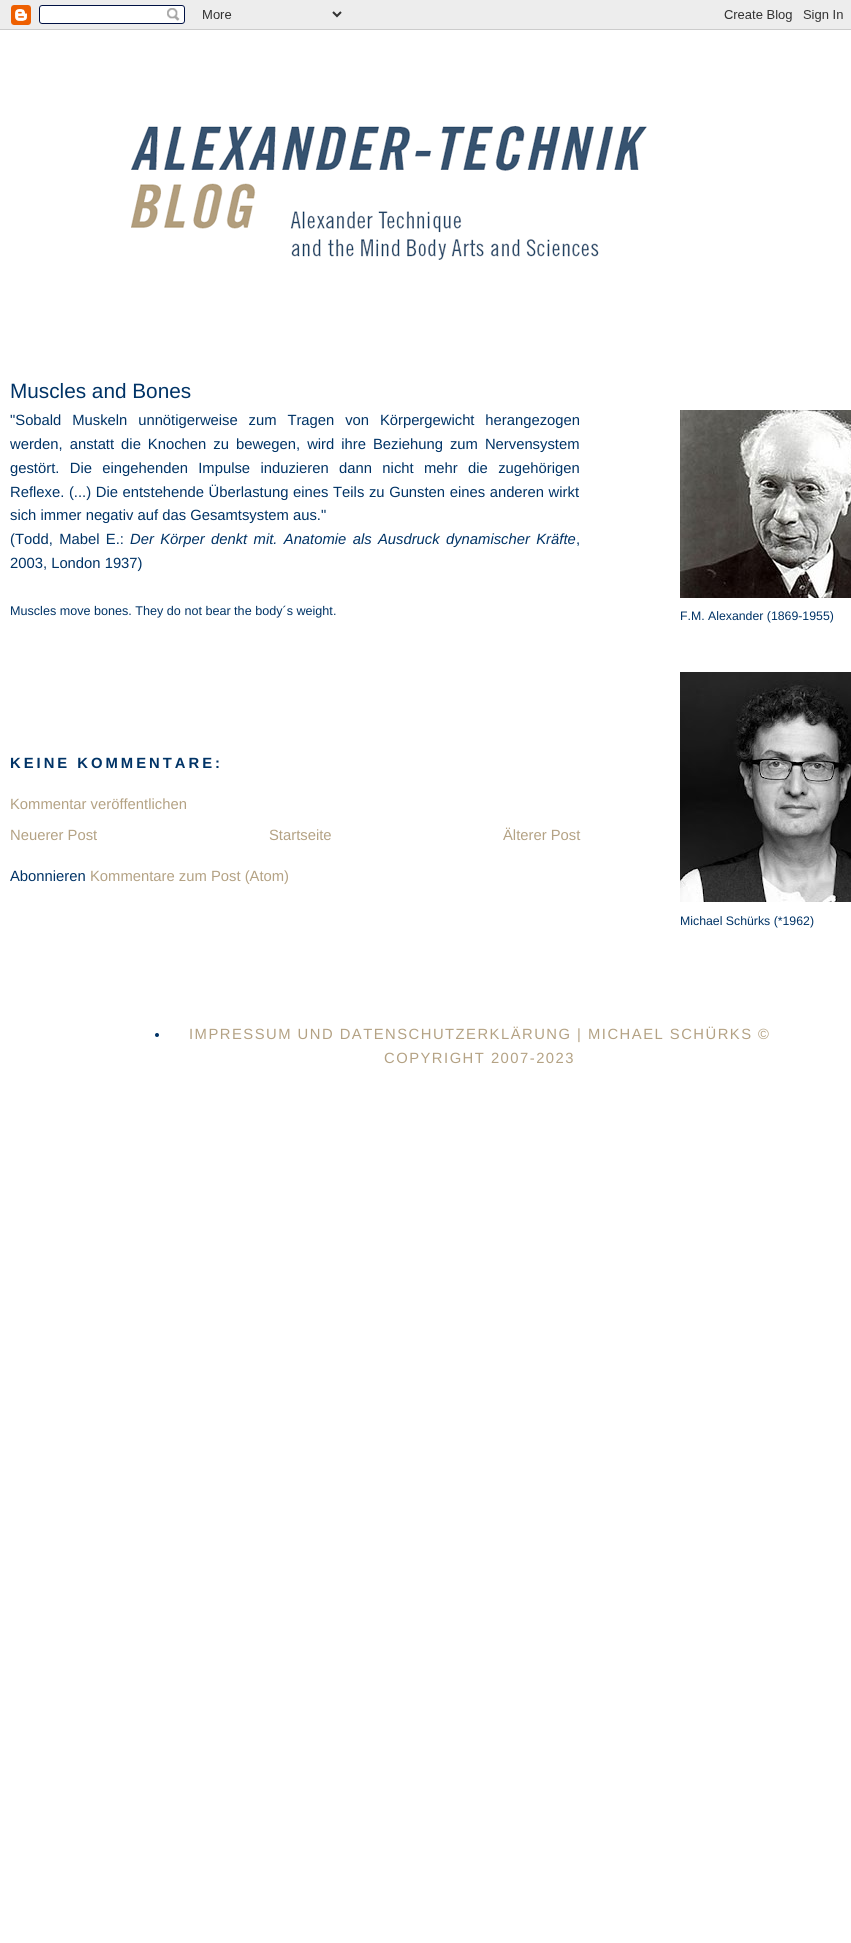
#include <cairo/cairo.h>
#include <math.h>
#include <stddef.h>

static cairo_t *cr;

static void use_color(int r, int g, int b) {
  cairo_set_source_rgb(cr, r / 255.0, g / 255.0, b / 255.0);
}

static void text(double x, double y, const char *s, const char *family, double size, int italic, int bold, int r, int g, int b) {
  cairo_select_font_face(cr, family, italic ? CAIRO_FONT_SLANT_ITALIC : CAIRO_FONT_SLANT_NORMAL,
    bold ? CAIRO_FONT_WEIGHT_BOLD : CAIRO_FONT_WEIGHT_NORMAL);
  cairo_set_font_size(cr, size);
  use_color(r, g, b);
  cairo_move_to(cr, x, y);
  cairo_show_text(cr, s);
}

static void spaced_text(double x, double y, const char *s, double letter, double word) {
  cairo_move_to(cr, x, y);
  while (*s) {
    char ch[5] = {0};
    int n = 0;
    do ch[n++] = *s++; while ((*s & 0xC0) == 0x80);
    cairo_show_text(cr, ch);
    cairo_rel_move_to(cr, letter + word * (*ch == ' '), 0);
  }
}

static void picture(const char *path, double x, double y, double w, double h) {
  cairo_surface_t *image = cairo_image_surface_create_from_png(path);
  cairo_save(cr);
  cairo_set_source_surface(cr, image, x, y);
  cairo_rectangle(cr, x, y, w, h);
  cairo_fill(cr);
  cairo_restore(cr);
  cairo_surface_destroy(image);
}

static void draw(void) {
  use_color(255, 255, 255);
  cairo_paint(cr);
  picture("img_01.png", 0, 0, 851, 30);
  picture("img_02.png", 131, 125, 516, 135);
  picture("img_03.png", 680, 410, 171, 188);
  picture("img_04.png", 680, 672, 171, 230);
  use_color(0, 51, 102);
  cairo_arc(cr, 157, 1035, 2, 0, 2 * M_PI);
  cairo_fill(cr);
  text(10, 398, "Muscles and Bones", "Liberation Sans", 20.75, 0, 0, 0, 51, 102);
  cairo_set_font_size(cr, 14.8);
  spaced_text(10, 425, "\"Sobald Muskeln unnötigerweise zum Tragen von Körpergewicht herangezogen", 0, 6.75);
  spaced_text(10, 449, "werden, anstatt die Knochen zu bewegen, wird ihre Beziehung zum Nervensystem", 0, 2.9);
  spaced_text(10, 473, "gestört. Die eingehenden Impulse induzieren dann nicht mehr die zugehörigen", 0, 6.25);
  spaced_text(10, 497, "Reflexe. (...) Die entstehende Überlastung eines Teils zu Gunsten eines anderen wirkt", 0, 0.5);
  text(10, 520, "sich immer negativ auf das Gesamtsystem aus.\"", "Liberation Sans", 14.8, 0, 0, 0, 51, 102);
  spaced_text(10, 544, "(Todd, Mabel E.:", 0, 2.25);
  cairo_select_font_face(cr, "Liberation Sans", CAIRO_FONT_SLANT_ITALIC, CAIRO_FONT_WEIGHT_NORMAL);
  spaced_text(130, 544, "Der Körper denkt mit. Anatomie als Ausdruck dynamischer Kräfte", 0, 2.25);
  text(576, 544, ",", "Liberation Sans", 14.8, 0, 0, 0, 51, 102);
  text(10, 568, "2003, London 1937)", "Liberation Sans", 14.8, 0, 0, 0, 51, 102);
  text(10, 615, "Muscles move bones. They do not bear the body´s weight.", "Liberation Sans", 12.6, 0, 0, 0, 51, 102);
  cairo_select_font_face(cr, "Liberation Sans", CAIRO_FONT_SLANT_NORMAL, CAIRO_FONT_WEIGHT_BOLD);
  cairo_set_font_size(cr, 14.8);
  spaced_text(10, 768, "KEINE KOMMENTARE:", 3, 0);
  text(10, 809, "Kommentar veröffentlichen", "Liberation Sans", 14.8, 0, 0, 180, 162, 132);
  text(10, 840, "Neuerer Post", "Liberation Sans", 14.8, 0, 0, 180, 162, 132);
  text(269, 840, "Startseite", "Liberation Sans", 14.8, 0, 0, 180, 162, 132);
  text(503, 840, "Älterer Post", "Liberation Sans", 14.8, 0, 0, 180, 162, 132);
  text(10, 881, "Abonnieren", "Liberation Sans", 14.8, 0, 0, 0, 51, 102);
  text(90, 881, "Kommentare zum Post (Atom)", "Liberation Sans", 14.8, 0, 0, 180, 162, 132);
  text(680, 620, "F.M. Alexander (1869-1955)", "Liberation Sans", 12.3, 0, 0, 0, 51, 102);
  text(680, 925, "Michael Schürks (*1962)", "Liberation Sans", 12.3, 0, 0, 0, 51, 102);
  cairo_set_font_size(cr, 14.8);
  use_color(180, 162, 132);
  spaced_text(189, 1039, "IMPRESSUM UND DATENSCHUTZERKLÄRUNG | MICHAEL SCHÜRKS ©", 1.48, 0);
  spaced_text(384, 1063, "COPYRIGHT 2007-2023", 1.48, 0);
}

int main(void) {
  cairo_surface_t *surface = cairo_image_surface_create(CAIRO_FORMAT_RGB24, 851, 1943);
  cr = cairo_create(surface);
  cairo_font_options_t *options = cairo_font_options_create();
  cairo_font_options_set_hint_metrics(options, CAIRO_HINT_METRICS_OFF);
  cairo_font_options_set_hint_style(options, CAIRO_HINT_STYLE_NONE);
  cairo_set_font_options(cr, options);
  cairo_set_miter_limit(cr, 4);
  draw();
  cairo_surface_write_to_png(surface, "out.png");
  cairo_font_options_destroy(options);
  cairo_destroy(cr);
  cairo_surface_destroy(surface);
  return 0;
}
